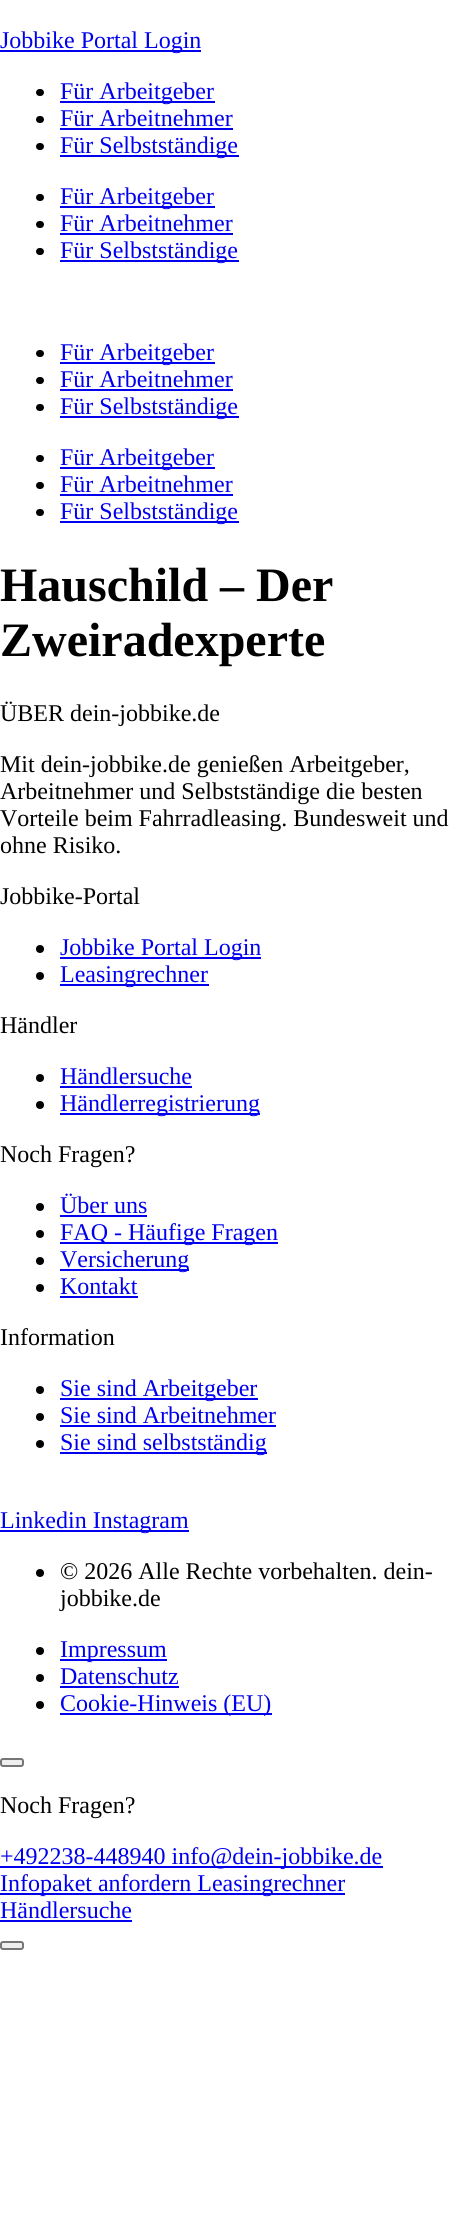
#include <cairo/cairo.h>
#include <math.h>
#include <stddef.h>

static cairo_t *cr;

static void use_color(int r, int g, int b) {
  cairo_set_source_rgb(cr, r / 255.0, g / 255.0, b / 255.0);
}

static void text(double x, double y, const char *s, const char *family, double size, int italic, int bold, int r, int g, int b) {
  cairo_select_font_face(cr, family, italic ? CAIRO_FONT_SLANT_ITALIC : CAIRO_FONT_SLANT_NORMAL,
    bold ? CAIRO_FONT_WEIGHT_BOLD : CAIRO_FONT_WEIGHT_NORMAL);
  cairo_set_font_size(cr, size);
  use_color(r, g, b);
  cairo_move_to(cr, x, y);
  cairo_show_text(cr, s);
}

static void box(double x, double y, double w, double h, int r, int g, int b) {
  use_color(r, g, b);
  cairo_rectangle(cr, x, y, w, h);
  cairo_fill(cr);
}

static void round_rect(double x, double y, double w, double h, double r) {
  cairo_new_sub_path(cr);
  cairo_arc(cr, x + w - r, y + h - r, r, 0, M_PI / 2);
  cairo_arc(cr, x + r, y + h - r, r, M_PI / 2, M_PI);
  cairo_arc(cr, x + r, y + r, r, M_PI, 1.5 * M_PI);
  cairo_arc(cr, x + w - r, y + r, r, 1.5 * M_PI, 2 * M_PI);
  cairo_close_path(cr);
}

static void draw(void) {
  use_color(255, 255, 255);
  cairo_paint(cr);
  box(0, 50, 201, 2, 0, 0, 238);
  use_color(0, 0, 0);
  round_rect(36, 89, 8, 7, 3.5);
  cairo_fill(cr);
  box(60, 101, 155, 2, 0, 0, 238);
  use_color(0, 0, 0);
  round_rect(36, 116, 8, 7, 3.5);
  cairo_fill(cr);
  box(60, 128, 173, 2, 0, 0, 238);
  use_color(0, 0, 0);
  round_rect(36, 143, 8, 7, 3.5);
  cairo_fill(cr);
  box(60, 155, 179, 2, 0, 0, 238);
  use_color(0, 0, 0);
  round_rect(36, 194, 8, 7, 3.5);
  cairo_fill(cr);
  box(60, 206, 155, 2, 0, 0, 238);
  use_color(0, 0, 0);
  round_rect(36, 221, 8, 7, 3.5);
  cairo_fill(cr);
  box(60, 233, 173, 2, 0, 0, 238);
  use_color(0, 0, 0);
  round_rect(36, 248, 8, 7, 3.5);
  cairo_fill(cr);
  box(60, 260, 179, 2, 0, 0, 238);
  use_color(0, 0, 0);
  round_rect(36, 350, 8, 7, 3.5);
  cairo_fill(cr);
  box(60, 362, 155, 2, 0, 0, 238);
  use_color(0, 0, 0);
  round_rect(36, 377, 8, 7, 3.5);
  cairo_fill(cr);
  box(60, 389, 173, 2, 0, 0, 238);
  use_color(0, 0, 0);
  round_rect(36, 404, 8, 7, 3.5);
  cairo_fill(cr);
  box(60, 416, 179, 2, 0, 0, 238);
  use_color(0, 0, 0);
  round_rect(36, 455, 8, 7, 3.5);
  cairo_fill(cr);
  box(60, 467, 155, 2, 0, 0, 238);
  use_color(0, 0, 0);
  round_rect(36, 482, 8, 7, 3.5);
  cairo_fill(cr);
  box(60, 494, 173, 2, 0, 0, 238);
  use_color(0, 0, 0);
  round_rect(36, 509, 8, 7, 3.5);
  cairo_fill(cr);
  box(60, 521, 179, 2, 0, 0, 238);
  use_color(0, 0, 0);
  cairo_arc(cr, 40, 949, 4, 0, 2 * M_PI);
  cairo_fill(cr);
  box(60, 957, 201, 2, 0, 0, 238);
  use_color(0, 0, 0);
  cairo_arc(cr, 40, 976, 4, 0, 2 * M_PI);
  cairo_fill(cr);
  box(60, 984, 149, 2, 0, 0, 238);
  use_color(0, 0, 0);
  cairo_arc(cr, 40, 1078, 4, 0, 2 * M_PI);
  cairo_fill(cr);
  box(60, 1086, 132, 2, 0, 0, 238);
  use_color(0, 0, 0);
  cairo_arc(cr, 40, 1105, 4, 0, 2 * M_PI);
  cairo_fill(cr);
  box(60, 1113, 200, 2, 0, 0, 238);
  use_color(0, 0, 0);
  cairo_arc(cr, 40, 1207, 4, 0, 2 * M_PI);
  cairo_fill(cr);
  box(60, 1215, 87, 2, 0, 0, 238);
  use_color(0, 0, 0);
  cairo_arc(cr, 40, 1234, 4, 0, 2 * M_PI);
  cairo_fill(cr);
  box(60, 1242, 218, 2, 0, 0, 238);
  use_color(0, 0, 0);
  cairo_arc(cr, 40, 1261, 4, 0, 2 * M_PI);
  cairo_fill(cr);
  box(60, 1269, 129, 2, 0, 0, 238);
  use_color(0, 0, 0);
  cairo_arc(cr, 40, 1288, 4, 0, 2 * M_PI);
  cairo_fill(cr);
  box(60, 1296, 78, 2, 0, 0, 238);
  use_color(0, 0, 0);
  cairo_arc(cr, 40, 1390, 4, 0, 2 * M_PI);
  cairo_fill(cr);
  box(60, 1398, 198, 2, 0, 0, 238);
  use_color(0, 0, 0);
  cairo_arc(cr, 40, 1417, 4, 0, 2 * M_PI);
  cairo_fill(cr);
  box(60, 1425, 216, 2, 0, 0, 238);
  use_color(0, 0, 0);
  cairo_arc(cr, 40, 1444, 4, 0, 2 * M_PI);
  cairo_fill(cr);
  box(60, 1452, 207, 2, 0, 0, 238);
  box(0, 1530, 189, 2, 0, 0, 238);
  use_color(0, 0, 0);
  cairo_arc(cr, 40, 1573, 4, 0, 2 * M_PI);
  cairo_fill(cr);
  cairo_arc(cr, 40, 1651, 4, 0, 2 * M_PI);
  cairo_fill(cr);
  box(60, 1659, 107, 2, 0, 0, 238);
  use_color(0, 0, 0);
  cairo_arc(cr, 40, 1678, 4, 0, 2 * M_PI);
  cairo_fill(cr);
  box(60, 1686, 119, 2, 0, 0, 238);
  use_color(0, 0, 0);
  cairo_arc(cr, 40, 1705, 4, 0, 2 * M_PI);
  cairo_fill(cr);
  box(60, 1713, 212, 2, 0, 0, 238);
  use_color(239, 239, 239);
  round_rect(1, 1759, 22, 7, 2);
  cairo_fill_preserve(cr);
  use_color(118, 118, 118);
  cairo_stroke(cr);
  box(0, 1866, 383, 2, 0, 0, 238);
  box(0, 1893, 345, 2, 0, 0, 238);
  box(0, 1920, 132, 2, 0, 0, 238);
  use_color(239, 239, 239);
  round_rect(1, 1942, 22, 7, 2);
  cairo_fill_preserve(cr);
  use_color(118, 118, 118);
  cairo_stroke(cr);
  text(0, 48, "Jobbike Portal Login", "Liberation Serif", 24, 0, 0, 0, 0, 238);
  text(60, 99, "Für Arbeitgeber", "Liberation Serif", 24, 0, 0, 0, 0, 238);
  text(60, 126, "Für Arbeitnehmer", "Liberation Serif", 24, 0, 0, 0, 0, 238);
  text(60, 153, "Für Selbstständige", "Liberation Serif", 24, 0, 0, 0, 0, 238);
  text(60, 204, "Für Arbeitgeber", "Liberation Serif", 24, 0, 0, 0, 0, 238);
  text(60, 231, "Für Arbeitnehmer", "Liberation Serif", 24, 0, 0, 0, 0, 238);
  text(60, 258, "Für Selbstständige", "Liberation Serif", 24, 0, 0, 0, 0, 238);
  text(60, 360, "Für Arbeitgeber", "Liberation Serif", 24, 0, 0, 0, 0, 238);
  text(60, 387, "Für Arbeitnehmer", "Liberation Serif", 24, 0, 0, 0, 0, 238);
  text(60, 414, "Für Selbstständige", "Liberation Serif", 24, 0, 0, 0, 0, 238);
  text(60, 465, "Für Arbeitgeber", "Liberation Serif", 24, 0, 0, 0, 0, 238);
  text(60, 492, "Für Arbeitnehmer", "Liberation Serif", 24, 0, 0, 0, 0, 238);
  text(60, 519, "Für Selbstständige", "Liberation Serif", 24, 0, 0, 0, 0, 238);
  text(0, 601, "Hauschild – Der", "Liberation Serif", 48, 0, 1, 0, 0, 0);
  text(0, 656, "Zweiradexperte", "Liberation Serif", 48, 0, 1, 0, 0, 0);
  text(0, 721, "ÜBER dein-jobbike.de", "Liberation Serif", 24, 0, 0, 0, 0, 0);
  text(0, 772, "Mit dein-jobbike.de genießen Arbeitgeber,", "Liberation Serif", 24, 0, 0, 0, 0, 0);
  text(0, 799, "Arbeitnehmer und Selbstständige die besten", "Liberation Serif", 24, 0, 0, 0, 0, 0);
  text(0, 826, "Vorteile beim Fahrradleasing. Bundesweit und", "Liberation Serif", 24, 0, 0, 0, 0, 0);
  text(0, 853, "ohne Risiko.", "Liberation Serif", 24, 0, 0, 0, 0, 0);
  text(0, 904, "Jobbike-Portal", "Liberation Serif", 24, 0, 0, 0, 0, 0);
  text(60, 955, "Jobbike Portal Login", "Liberation Serif", 24, 0, 0, 0, 0, 238);
  text(60, 982, "Leasingrechner", "Liberation Serif", 24, 0, 0, 0, 0, 238);
  text(0, 1033, "Händler", "Liberation Serif", 24, 0, 0, 0, 0, 0);
  text(60, 1084, "Händlersuche", "Liberation Serif", 24, 0, 0, 0, 0, 238);
  text(60, 1111, "Händlerregistrierung", "Liberation Serif", 24, 0, 0, 0, 0, 238);
  text(0, 1162, "Noch Fragen?", "Liberation Serif", 24, 0, 0, 0, 0, 0);
  text(60, 1213, "Über uns", "Liberation Serif", 24, 0, 0, 0, 0, 238);
  text(60, 1240, "FAQ - Häufige Fragen", "Liberation Serif", 24, 0, 0, 0, 0, 238);
  text(60, 1267, "Versicherung", "Liberation Serif", 24, 0, 0, 0, 0, 238);
  text(60, 1294, "Kontakt", "Liberation Serif", 24, 0, 0, 0, 0, 238);
  text(0, 1345, "Information", "Liberation Serif", 24, 0, 0, 0, 0, 0);
  text(60, 1396, "Sie sind Arbeitgeber", "Liberation Serif", 24, 0, 0, 0, 0, 238);
  text(60, 1423, "Sie sind Arbeitnehmer", "Liberation Serif", 24, 0, 0, 0, 0, 238);
  text(60, 1450, "Sie sind selbstständig", "Liberation Serif", 24, 0, 0, 0, 0, 238);
  text(0, 1528, "Linkedin Instagram", "Liberation Serif", 24, 0, 0, 0, 0, 238);
  text(60, 1579, "© 2026 Alle Rechte vorbehalten. dein-", "Liberation Serif", 24, 0, 0, 0, 0, 0);
  text(60, 1606, "jobbike.de", "Liberation Serif", 24, 0, 0, 0, 0, 0);
  text(60, 1657, "Impressum", "Liberation Serif", 24, 0, 0, 0, 0, 238);
  text(60, 1684, "Datenschutz", "Liberation Serif", 24, 0, 0, 0, 0, 238);
  text(60, 1711, "Cookie-Hinweis (EU)", "Liberation Serif", 24, 0, 0, 0, 0, 238);
  text(0, 1813, "Noch Fragen?", "Liberation Serif", 24, 0, 0, 0, 0, 0);
  text(0, 1864, "+492238-448940 info@dein-jobbike.de", "Liberation Serif", 24, 0, 0, 0, 0, 238);
  text(0, 1891, "Infopaket anfordern Leasingrechner", "Liberation Serif", 24, 0, 0, 0, 0, 238);
  text(0, 1918, "Händlersuche", "Liberation Serif", 24, 0, 0, 0, 0, 238);
}

int main(void) {
  cairo_surface_t *surface = cairo_image_surface_create(CAIRO_FORMAT_RGB24, 467, 2226);
  cr = cairo_create(surface);
  cairo_font_options_t *options = cairo_font_options_create();
  cairo_font_options_set_hint_metrics(options, CAIRO_HINT_METRICS_OFF);
  cairo_font_options_set_hint_style(options, CAIRO_HINT_STYLE_NONE);
  cairo_set_font_options(cr, options);
  cairo_set_miter_limit(cr, 4);
  draw();
  cairo_surface_write_to_png(surface, "out.png");
  cairo_font_options_destroy(options);
  cairo_destroy(cr);
  cairo_surface_destroy(surface);
  return 0;
}
